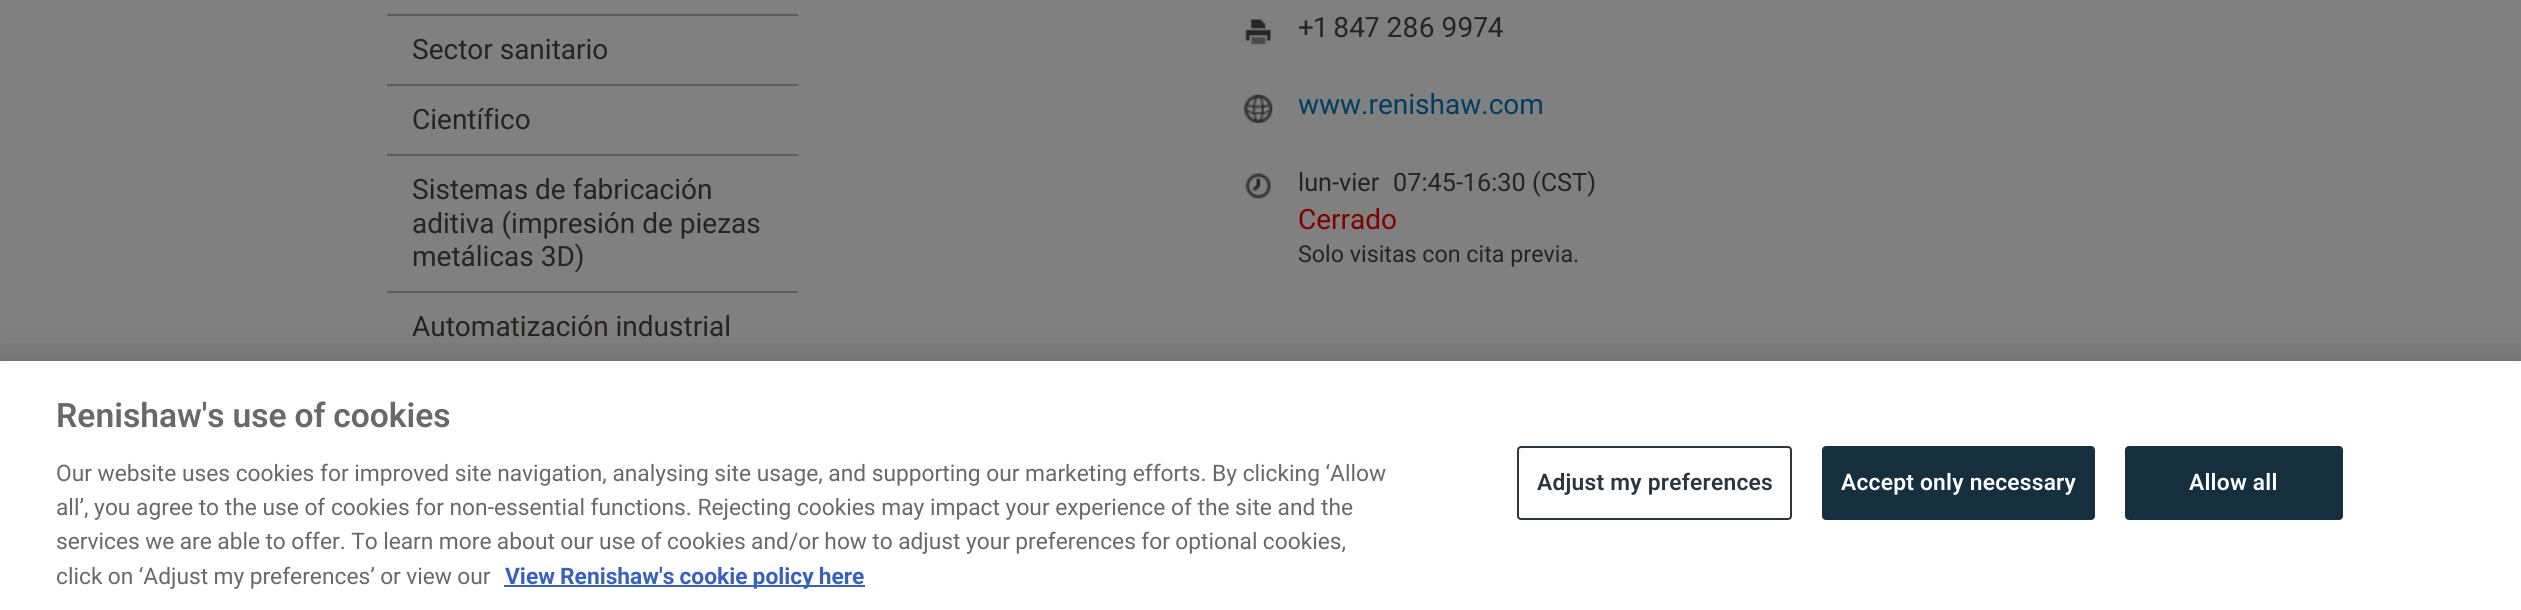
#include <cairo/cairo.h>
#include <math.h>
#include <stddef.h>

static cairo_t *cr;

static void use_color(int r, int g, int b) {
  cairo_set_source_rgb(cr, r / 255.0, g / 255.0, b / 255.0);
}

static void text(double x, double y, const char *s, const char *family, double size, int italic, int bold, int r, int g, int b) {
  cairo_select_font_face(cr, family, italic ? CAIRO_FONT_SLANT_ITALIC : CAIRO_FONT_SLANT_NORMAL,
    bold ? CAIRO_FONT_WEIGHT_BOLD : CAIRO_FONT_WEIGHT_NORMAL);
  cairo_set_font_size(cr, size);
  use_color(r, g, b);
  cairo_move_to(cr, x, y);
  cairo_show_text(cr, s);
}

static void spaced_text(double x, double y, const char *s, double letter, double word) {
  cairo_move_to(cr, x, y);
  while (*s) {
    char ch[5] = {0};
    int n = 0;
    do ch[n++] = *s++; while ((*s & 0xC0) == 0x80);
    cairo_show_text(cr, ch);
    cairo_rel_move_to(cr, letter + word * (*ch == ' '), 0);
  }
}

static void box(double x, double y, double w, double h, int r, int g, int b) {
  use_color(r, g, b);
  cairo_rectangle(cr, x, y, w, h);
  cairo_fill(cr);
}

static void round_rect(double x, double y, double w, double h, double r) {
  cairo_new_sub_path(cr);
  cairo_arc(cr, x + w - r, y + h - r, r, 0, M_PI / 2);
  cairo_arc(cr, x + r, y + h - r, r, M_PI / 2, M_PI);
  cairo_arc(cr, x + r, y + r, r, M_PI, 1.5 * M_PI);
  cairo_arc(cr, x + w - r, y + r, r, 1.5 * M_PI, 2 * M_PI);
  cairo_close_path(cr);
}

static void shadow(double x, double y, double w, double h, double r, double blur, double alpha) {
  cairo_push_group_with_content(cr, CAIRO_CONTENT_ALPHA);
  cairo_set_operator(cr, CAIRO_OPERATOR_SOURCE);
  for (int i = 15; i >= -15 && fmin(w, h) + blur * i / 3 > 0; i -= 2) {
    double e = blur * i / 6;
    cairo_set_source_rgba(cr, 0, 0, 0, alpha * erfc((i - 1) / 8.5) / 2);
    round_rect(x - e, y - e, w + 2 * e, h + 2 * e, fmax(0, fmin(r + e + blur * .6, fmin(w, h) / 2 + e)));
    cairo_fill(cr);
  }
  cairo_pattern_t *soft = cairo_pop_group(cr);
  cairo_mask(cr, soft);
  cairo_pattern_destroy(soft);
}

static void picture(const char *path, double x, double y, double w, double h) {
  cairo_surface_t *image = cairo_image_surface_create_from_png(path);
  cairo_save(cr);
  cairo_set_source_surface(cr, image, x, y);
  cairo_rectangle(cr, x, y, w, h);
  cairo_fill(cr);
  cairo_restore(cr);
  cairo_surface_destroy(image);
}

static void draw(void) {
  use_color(128, 128, 128);
  cairo_paint(cr);
  box(387, 14, 411, 2, 94, 94, 94);
  box(387, 84, 411, 2, 94, 94, 94);
  box(387, 154, 411, 2, 94, 94, 94);
  box(387, 291, 411, 2, 94, 94, 94);
  picture("img_01.png", 1245, 19, 26, 26);
  picture("img_02.png", 1244, 94, 29, 29);
  picture("img_03.png", 1245, 173, 26, 26);
  use_color(0, 0, 0);
  shadow(0, 361, 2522, 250, 0, 16, 0.2);
  box(0, 361, 2521, 249, 255, 255, 255);
  box(504, 585, 361, 2, 56, 96, 190);
  round_rect(1518, 447, 273, 72, 3);
  use_color(44, 54, 63);
  cairo_stroke(cr);
  use_color(21, 47, 63);
  round_rect(1823, 447, 271, 72, 3);
  cairo_fill_preserve(cr);
  cairo_stroke(cr);
  round_rect(2126, 447, 216, 72, 3);
  cairo_fill_preserve(cr);
  cairo_stroke(cr);
  text(412, 59, "Sector sanitario", "Roboto", 28, 0, 0, 38, 36, 34);
  text(412, 129, "Científico", "Roboto", 28, 0, 0, 38, 36, 34);
  text(412, 199, "Sistemas de fabricación", "Roboto", 28, 0, 0, 38, 36, 34);
  text(412, 233, "aditiva (impresión de piezas", "Roboto", 28, 0, 0, 38, 36, 34);
  text(412, 266, "metálicas 3D)", "Roboto", 28, 0, 0, 38, 36, 34);
  text(412, 336, "Automatización industrial", "Roboto", 28, 0, 0, 38, 36, 34);
  text(1298, 37, "+1 847 286 9974", "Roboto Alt", 28, 0, 0, 38, 36, 34);
  text(1298, 114, "www.renishaw.com", "Roboto", 28, 0, 0, 0, 61, 97);
  text(1298, 191, "lun-vier", "Roboto", 25.25, 0, 0, 38, 36, 34);
  text(1393, 191, "07:45-16:30 (CST)", "Roboto", 25.25, 0, 0, 38, 36, 34);
  text(1298, 229, "Cerrado", "Roboto", 28, 0, 0, 128, 0, 0);
  text(1298, 262, "Solo visitas con cita previa.", "Roboto", 23.25, 0, 0, 38, 36, 34);
  cairo_select_font_face(cr, "Roboto SemiBold", CAIRO_FONT_SLANT_NORMAL, CAIRO_FONT_WEIGHT_NORMAL);
  cairo_set_font_size(cr, 33.6);
  use_color(105, 105, 105);
  spaced_text(56, 427, "Renishaw's use of cookies", 0, -0.5);
  text(56, 481, "Our website uses cookies for improved site navigation, analysing site usage, and supporting our marketing efforts. By clicking ‘Allow", "Roboto", 22.75, 0, 0, 105, 105, 105);
  text(56, 515, "all’, you agree to the use of cookies for non-essential functions. Rejecting cookies may impact your experience of the site and the", "Roboto", 22.75, 0, 0, 105, 105, 105);
  spaced_text(56, 549, "services we are able to offer. To learn more about our use of cookies and/or how to adjust your preferences for optional cookies,", 0, -0.25);
  spaced_text(56, 584, "click on ‘Adjust my preferences’ or view our", 0, -0.25);
  cairo_select_font_face(cr, "Roboto", CAIRO_FONT_SLANT_NORMAL, CAIRO_FONT_WEIGHT_BOLD);
  use_color(56, 96, 190);
  spaced_text(505, 584, "View Renishaw's cookie policy here", 0, -0.5);
  cairo_select_font_face(cr, "Roboto SemiBold", CAIRO_FONT_SLANT_NORMAL, CAIRO_FONT_WEIGHT_NORMAL);
  use_color(44, 54, 63);
  spaced_text(1537, 490, "Adjust my preferences", 0.25, 0);
  use_color(255, 255, 255);
  spaced_text(1841, 490, "Accept only necessary", 0.25, 0);
  spaced_text(2189, 490, "Allow all", 0.25, 0);
}

int main(void) {
  cairo_surface_t *surface = cairo_image_surface_create(CAIRO_FORMAT_RGB24, 2521, 610);
  cr = cairo_create(surface);
  cairo_font_options_t *options = cairo_font_options_create();
  cairo_font_options_set_hint_metrics(options, CAIRO_HINT_METRICS_OFF);
  cairo_font_options_set_hint_style(options, CAIRO_HINT_STYLE_NONE);
  cairo_set_font_options(cr, options);
  cairo_set_miter_limit(cr, 4);
  draw();
  cairo_surface_write_to_png(surface, "out.png");
  cairo_font_options_destroy(options);
  cairo_destroy(cr);
  cairo_surface_destroy(surface);
  return 0;
}
